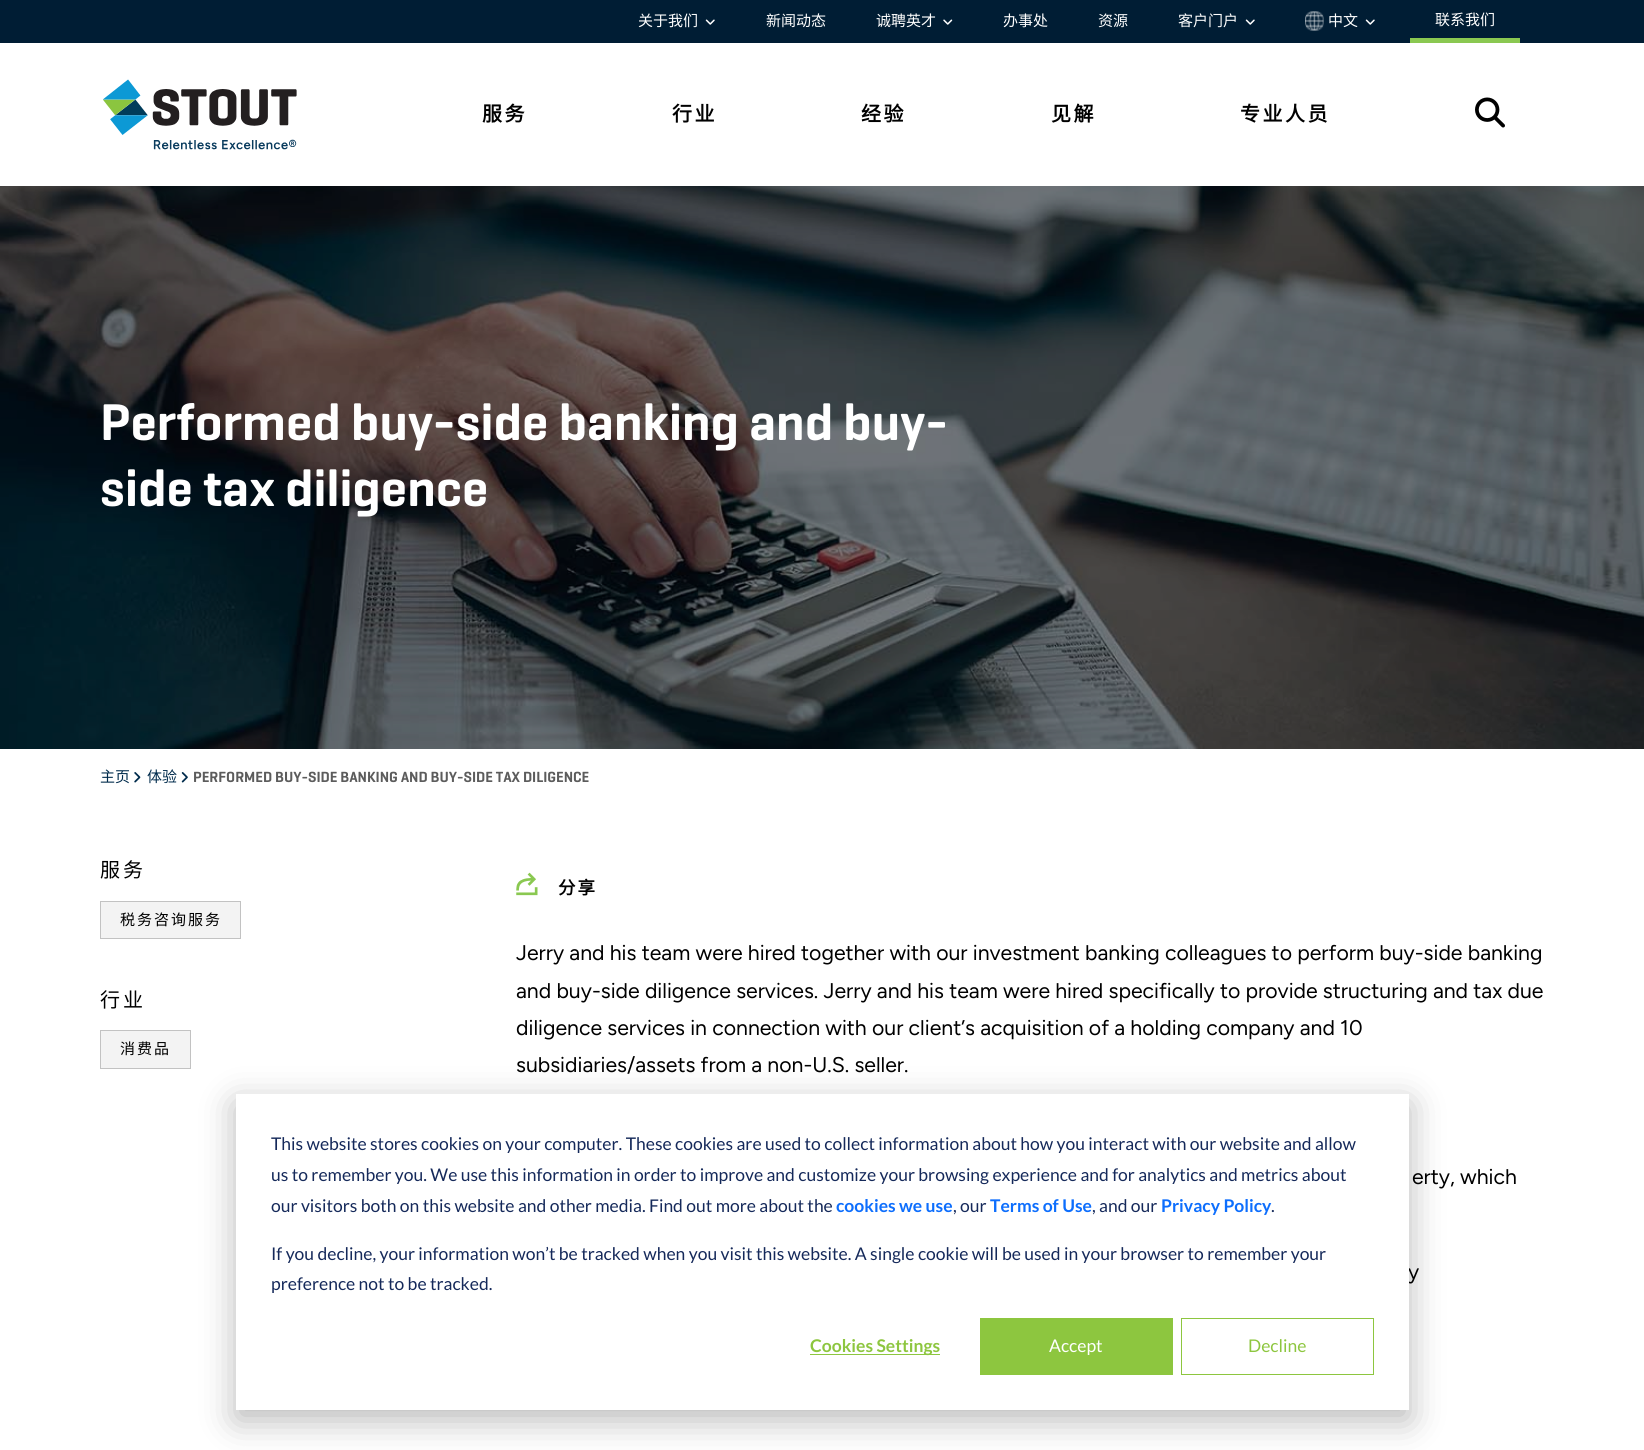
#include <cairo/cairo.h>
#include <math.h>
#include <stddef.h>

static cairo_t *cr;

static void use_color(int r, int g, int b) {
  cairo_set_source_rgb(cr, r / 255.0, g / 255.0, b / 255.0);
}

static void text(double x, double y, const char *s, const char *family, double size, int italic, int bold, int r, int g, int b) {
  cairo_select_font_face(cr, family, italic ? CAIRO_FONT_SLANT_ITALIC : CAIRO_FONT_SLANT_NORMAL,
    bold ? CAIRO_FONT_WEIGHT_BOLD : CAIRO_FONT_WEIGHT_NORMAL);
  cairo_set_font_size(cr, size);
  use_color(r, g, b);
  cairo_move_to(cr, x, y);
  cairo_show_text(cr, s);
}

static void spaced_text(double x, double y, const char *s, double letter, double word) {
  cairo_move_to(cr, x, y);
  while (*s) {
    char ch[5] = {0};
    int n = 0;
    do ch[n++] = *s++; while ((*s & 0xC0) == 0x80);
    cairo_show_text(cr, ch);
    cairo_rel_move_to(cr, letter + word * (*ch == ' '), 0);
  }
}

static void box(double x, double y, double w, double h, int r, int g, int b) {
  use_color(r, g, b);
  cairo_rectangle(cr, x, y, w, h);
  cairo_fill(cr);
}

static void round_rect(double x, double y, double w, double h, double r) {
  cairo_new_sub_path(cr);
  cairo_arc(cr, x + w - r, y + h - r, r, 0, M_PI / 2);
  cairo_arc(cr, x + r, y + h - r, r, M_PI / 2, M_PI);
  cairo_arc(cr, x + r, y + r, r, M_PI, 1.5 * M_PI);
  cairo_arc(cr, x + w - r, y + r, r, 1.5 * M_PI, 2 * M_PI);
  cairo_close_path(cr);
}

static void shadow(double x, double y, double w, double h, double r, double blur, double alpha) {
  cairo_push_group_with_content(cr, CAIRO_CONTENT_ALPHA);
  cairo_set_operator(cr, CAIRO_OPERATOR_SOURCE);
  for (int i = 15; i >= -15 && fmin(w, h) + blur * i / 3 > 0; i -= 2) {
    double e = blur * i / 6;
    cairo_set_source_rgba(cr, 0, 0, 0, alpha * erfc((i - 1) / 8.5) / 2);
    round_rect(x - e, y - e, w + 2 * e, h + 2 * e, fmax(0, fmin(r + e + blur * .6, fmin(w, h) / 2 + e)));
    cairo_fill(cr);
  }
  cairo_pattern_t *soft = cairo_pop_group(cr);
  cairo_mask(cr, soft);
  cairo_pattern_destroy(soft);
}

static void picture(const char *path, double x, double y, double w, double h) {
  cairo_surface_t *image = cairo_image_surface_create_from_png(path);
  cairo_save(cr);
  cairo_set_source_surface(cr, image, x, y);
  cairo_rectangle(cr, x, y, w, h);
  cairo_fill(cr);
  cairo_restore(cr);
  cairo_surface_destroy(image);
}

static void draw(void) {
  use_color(255, 255, 255);
  cairo_paint(cr);
  box(0, 0, 1644, 43, 0, 29, 52);
  picture("img_01.png", 705, 19, 10, 6);
  picture("img_02.png", 943, 19, 10, 6);
  picture("img_01.png", 1245, 19, 10, 6);
  picture("img_03.png", 1305, 11, 19, 20);
  picture("img_01.png", 1365, 19, 10, 6);
  box(1410, 38, 110, 5, 138, 200, 81);
  picture("img_04.png", 103, 79, 194, 71);
  picture("img_05.png", 1475, 97, 30, 31);
  picture("img_06.png", 0, 186, 1644, 563);
  picture("img_07.png", 134, 772, 7, 11);
  picture("img_08.png", 181, 772, 7, 11);
  use_color(243, 243, 243);
  cairo_rectangle(cr, 100.5, 901.5, 140, 37);
  cairo_fill_preserve(cr);
  use_color(194, 194, 194);
  cairo_set_line_width(cr, 1);
  cairo_stroke(cr);
  use_color(243, 243, 243);
  cairo_rectangle(cr, 100.5, 1030.5, 90, 38);
  cairo_fill_preserve(cr);
  use_color(194, 194, 194);
  cairo_stroke(cr);
  picture("img_09.png", 516, 872, 22, 24);
  use_color(0, 0, 0);
  shadow(236, 1104, 1173, 316, 0, 17.5, 0.28);
  text(638, 26, "关于我们", "Noto Sans CJK SC", 15, 0, 0, 255, 255, 255);
  text(766, 26, "新闻动态", "Noto Sans CJK SC", 15, 0, 0, 255, 255, 255);
  text(876, 26, "诚聘英才", "Noto Sans CJK SC", 15, 0, 0, 255, 255, 255);
  text(1003, 26, "办事处", "Noto Sans CJK SC", 15, 0, 0, 255, 255, 255);
  text(1098, 26, "资源", "Noto Sans CJK SC", 15, 0, 0, 255, 255, 255);
  text(1178, 26, "客户门户", "Noto Sans CJK SC", 15, 0, 0, 255, 255, 255);
  text(1328, 26, "中文", "Noto Sans CJK SC", 15, 0, 0, 255, 255, 255);
  text(1435, 25, "联系我们", "Noto Sans CJK SC", 15, 0, 0, 255, 255, 255);
  cairo_select_font_face(cr, "Noto Sans CJK SC", CAIRO_FONT_SLANT_NORMAL, CAIRO_FONT_WEIGHT_BOLD);
  cairo_set_font_size(cr, 20);
  use_color(0, 0, 0);
  spaced_text(482, 121, "服务", 2.5, 0);
  spaced_text(672, 121, "行业", 2.5, 0);
  spaced_text(861, 121, "经验", 2.5, 0);
  spaced_text(1051, 121, "见解", 2.5, 0);
  spaced_text(1240, 121, "专业人员", 2.5, 0);
  text(100, 440, "Performed buy-side banking and buy-", "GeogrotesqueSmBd", 52.5, 0, 0, 255, 255, 255);
  text(100, 506, "side tax diligence", "GeogrotesqueSmBd", 52.5, 0, 0, 255, 255, 255);
  text(100, 782, "主页", "Noto Sans CJK SC", 15, 0, 0, 0, 43, 76);
  text(147, 782, "体验", "Noto Sans CJK SC", 15, 0, 0, 0, 43, 76);
  text(193, 782, "PERFORMED BUY-SIDE BANKING AND BUY-SIDE TAX DILIGENCE", "GeogrotesqueSmBd", 15, 0, 0, 92, 92, 92);
  cairo_select_font_face(cr, "Noto Sans CJK SC", CAIRO_FONT_SLANT_NORMAL, CAIRO_FONT_WEIGHT_NORMAL);
  cairo_set_font_size(cr, 20);
  use_color(0, 0, 0);
  spaced_text(100, 877, "服务", 3, 0);
  cairo_set_font_size(cr, 15);
  spaced_text(120, 925, "税务咨询服务", 2, 0);
  cairo_set_font_size(cr, 20);
  spaced_text(100, 1007, "行业", 3, 0);
  cairo_set_font_size(cr, 15);
  spaced_text(120, 1054, "消费品", 2, 0);
  cairo_select_font_face(cr, "Noto Sans CJK SC", CAIRO_FONT_SLANT_NORMAL, CAIRO_FONT_WEIGHT_BOLD);
  cairo_set_font_size(cr, 17.5);
  spaced_text(558, 894, "分享", 2, 0);
  text(516, 960, "Jerry and his team were hired together with our investment banking colleagues to perform buy-side banking", "Figtree", 21.25, 0, 0, 0, 0, 0);
  text(516, 998, "and buy-side diligence services. Jerry and his team were hired specifically to provide structuring and tax due", "Figtree", 21.25, 0, 0, 0, 0, 0);
  text(516, 1035, "diligence services in connection with our client’s acquisition of a holding company and 10", "Figtree", 21.25, 0, 0, 0, 0, 0);
  text(516, 1072, "subsidiaries/assets from a non-U.S. seller.", "Figtree", 21.25, 0, 0, 0, 0, 0);
  text(1412, 1184, "erty, which", "Figtree", 21.25, 0, 0, 0, 0, 0);
  text(1408, 1279, "y", "Figtree", 21.25, 0, 0, 0, 0, 0);
  box(236, 1094, 1173, 316, 255, 255, 255);
  text(271, 1150, "This website stores cookies on your computer. These cookies are used to collect information about how you interact with our website and allow", "Lato", 17.5, 0, 0, 21, 41, 90);
  text(271, 1181, "us to remember you. We use this information in order to improve and customize your browsing experience and for analytics and metrics about", "Lato", 17.5, 0, 0, 21, 41, 90);
  text(271, 1212, "our visitors both on this website and other media. Find out more about the", "Lato", 17.5, 0, 0, 21, 41, 90);
  text(836, 1212, "cookies we use", "Lato", 17.5, 0, 1, 13, 110, 253);
  text(953, 1212, ", our", "Lato", 17.5, 0, 0, 21, 41, 90);
  text(990, 1212, "Terms of Use", "Lato", 17.5, 0, 1, 13, 110, 253);
  text(1092, 1212, ", and our", "Lato", 17.5, 0, 0, 21, 41, 90);
  text(1161, 1212, "Privacy Policy", "Lato", 17.5, 0, 1, 13, 110, 253);
  text(1271, 1212, ".", "Lato", 17.5, 0, 0, 21, 41, 90);
  text(271, 1260, "If you decline, your information won’t be tracked when you visit this website. A single cookie will be used in your browser to remember your", "Lato", 17.5, 0, 0, 21, 41, 90);
  text(271, 1290, "preference not to be tracked.", "Lato", 17.5, 0, 0, 21, 41, 90);
  box(810, 1354, 130, 1, 141, 198, 63);
  text(810, 1352, "Cookies Settings", "Lato", 17.5, 0, 1, 141, 198, 63);
  box(980, 1318, 193, 57, 141, 198, 63);
  text(1049, 1352, "Accept", "Lato", 17.5, 0, 0, 255, 255, 255);
  cairo_rectangle(cr, 1181.5, 1318.5, 192, 56);
  use_color(141, 198, 63);
  cairo_stroke(cr);
  text(1248, 1352, "Decline", "Lato", 17.5, 0, 0, 141, 198, 63);
}

int main(void) {
  cairo_surface_t *surface = cairo_image_surface_create(CAIRO_FORMAT_RGB24, 1644, 1450);
  cr = cairo_create(surface);
  cairo_font_options_t *options = cairo_font_options_create();
  cairo_font_options_set_hint_metrics(options, CAIRO_HINT_METRICS_OFF);
  cairo_font_options_set_hint_style(options, CAIRO_HINT_STYLE_NONE);
  cairo_set_font_options(cr, options);
  cairo_set_miter_limit(cr, 4);
  draw();
  cairo_surface_write_to_png(surface, "out.png");
  cairo_font_options_destroy(options);
  cairo_destroy(cr);
  cairo_surface_destroy(surface);
  return 0;
}
